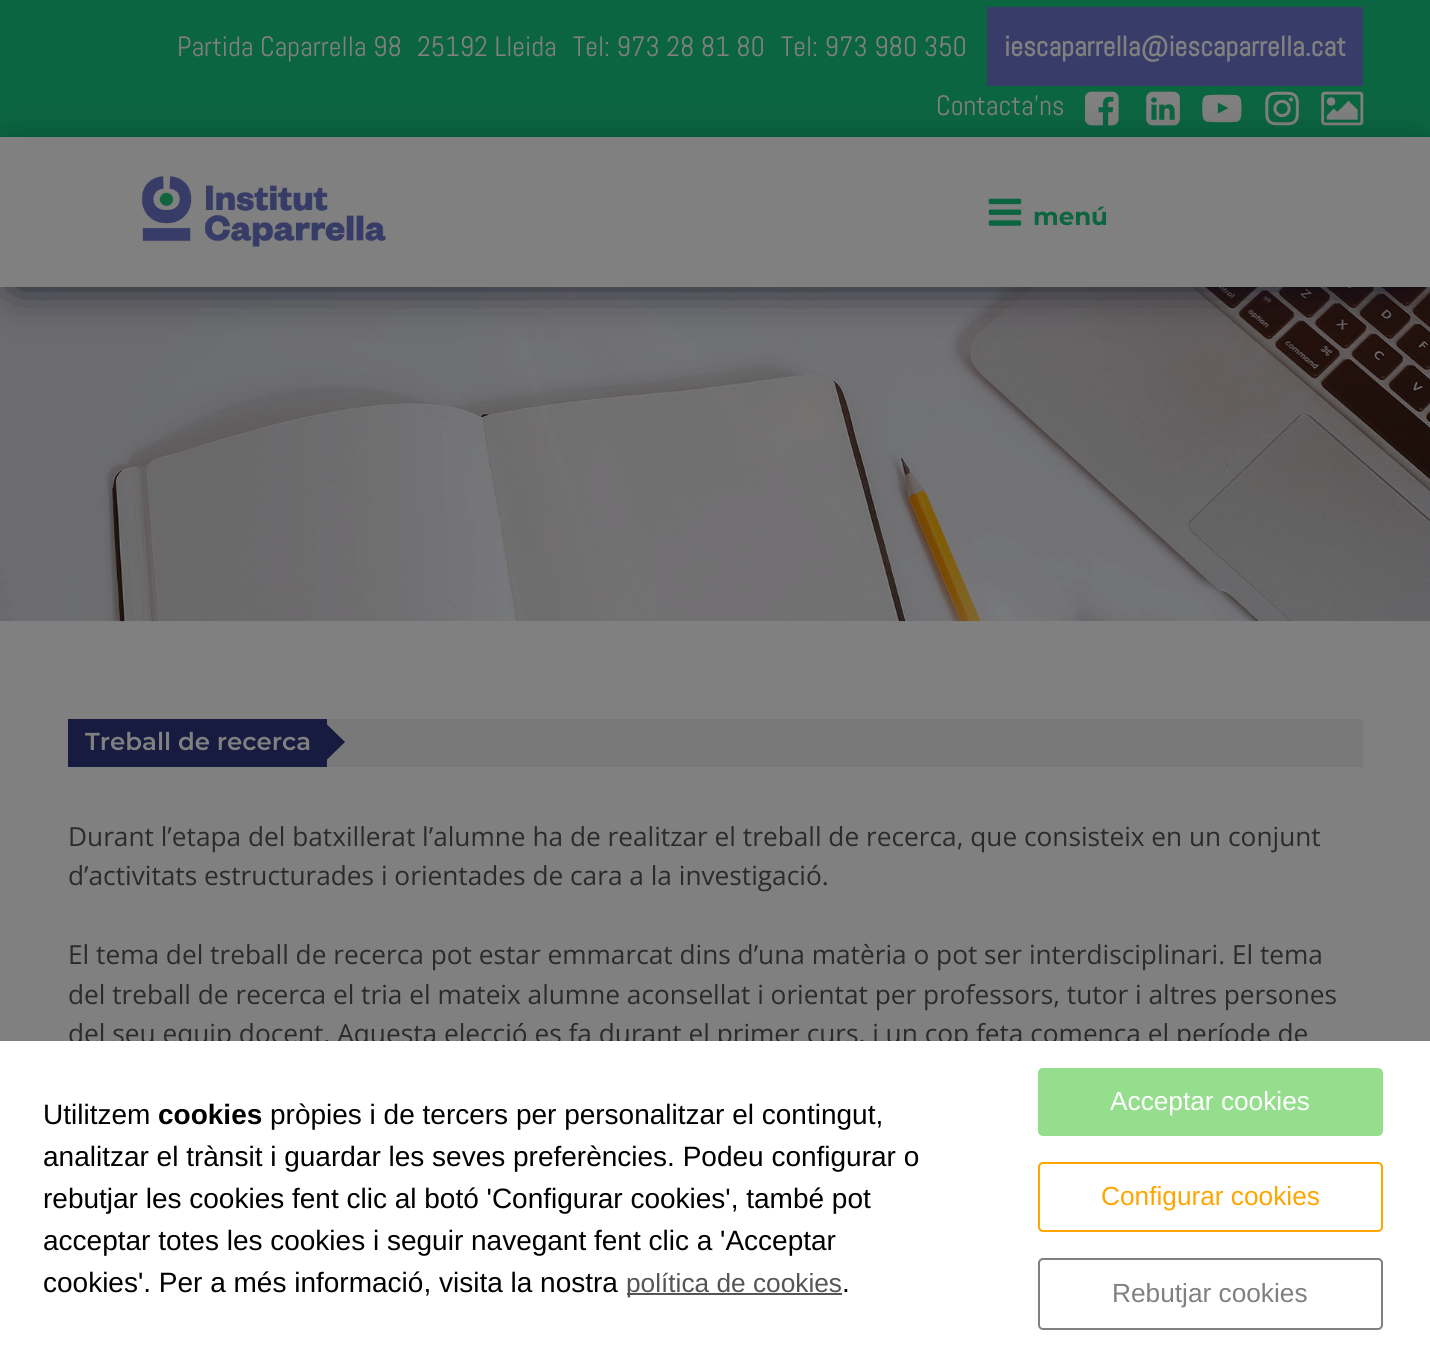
#include <cairo/cairo.h>
#include <math.h>
#include <stddef.h>

static cairo_t *cr;

static void use_color(int r, int g, int b) {
  cairo_set_source_rgb(cr, r / 255.0, g / 255.0, b / 255.0);
}

static void text(double x, double y, const char *s, const char *family, double size, int italic, int bold, int r, int g, int b) {
  cairo_select_font_face(cr, family, italic ? CAIRO_FONT_SLANT_ITALIC : CAIRO_FONT_SLANT_NORMAL,
    bold ? CAIRO_FONT_WEIGHT_BOLD : CAIRO_FONT_WEIGHT_NORMAL);
  cairo_set_font_size(cr, size);
  use_color(r, g, b);
  cairo_move_to(cr, x, y);
  cairo_show_text(cr, s);
}

static void box(double x, double y, double w, double h, int r, int g, int b) {
  use_color(r, g, b);
  cairo_rectangle(cr, x, y, w, h);
  cairo_fill(cr);
}

static void round_rect(double x, double y, double w, double h, double r) {
  cairo_new_sub_path(cr);
  cairo_arc(cr, x + w - r, y + h - r, r, 0, M_PI / 2);
  cairo_arc(cr, x + r, y + h - r, r, M_PI / 2, M_PI);
  cairo_arc(cr, x + r, y + r, r, M_PI, 1.5 * M_PI);
  cairo_arc(cr, x + w - r, y + r, r, 1.5 * M_PI, 2 * M_PI);
  cairo_close_path(cr);
}

static void shadow(double x, double y, double w, double h, double r, double blur, double alpha) {
  cairo_push_group_with_content(cr, CAIRO_CONTENT_ALPHA);
  cairo_set_operator(cr, CAIRO_OPERATOR_SOURCE);
  for (int i = 15; i >= -15 && fmin(w, h) + blur * i / 3 > 0; i -= 2) {
    double e = blur * i / 6;
    cairo_set_source_rgba(cr, 0, 0, 0, alpha * erfc((i - 1) / 8.5) / 2);
    round_rect(x - e, y - e, w + 2 * e, h + 2 * e, fmax(0, fmin(r + e + blur * .6, fmin(w, h) / 2 + e)));
    cairo_fill(cr);
  }
  cairo_pattern_t *soft = cairo_pop_group(cr);
  cairo_mask(cr, soft);
  cairo_pattern_destroy(soft);
}

static void picture(const char *path, double x, double y, double w, double h) {
  cairo_surface_t *image = cairo_image_surface_create_from_png(path);
  cairo_save(cr);
  cairo_set_source_surface(cr, image, x, y);
  cairo_rectangle(cr, x, y, w, h);
  cairo_fill(cr);
  cairo_restore(cr);
  cairo_surface_destroy(image);
}

static void draw(void) {
  use_color(128, 128, 128);
  cairo_paint(cr);
  box(0, 0, 1430, 135, 11, 101, 64);
  box(0, 135, 1430, 2, 11, 99, 62);
  box(987, 7, 376, 79, 55, 61, 104);
  picture("img_01.png", 1085, 91, 34, 35);
  picture("img_02.png", 1146, 91, 34, 35);
  picture("img_03.png", 1202, 94, 40, 29);
  picture("img_04.png", 1265, 91, 34, 35);
  picture("img_05.png", 1321, 91, 43, 35);
  picture("img_08.png", 0, 287, 1430, 335);
  cairo_save(cr);
  cairo_set_fill_rule(cr, CAIRO_FILL_RULE_EVEN_ODD);
  cairo_new_path(cr);
  cairo_move_to(cr, 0, 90);
  cairo_line_to(cr, 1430, 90);
  cairo_line_to(cr, 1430, 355);
  cairo_line_to(cr, 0, 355);
  cairo_close_path(cr);
  cairo_move_to(cr, 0, 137);
  cairo_line_to(cr, 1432, 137);
  cairo_line_to(cr, 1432, 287);
  cairo_line_to(cr, 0, 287);
  cairo_close_path(cr);
  cairo_clip(cr);
  use_color(4, 7, 26);
  shadow(16, 165, 1396, 115, 0, 24.5, 1);
  cairo_restore(cr);
  picture("img_06.png", 141, 176, 245, 71);
  picture("img_07.png", 988, 198, 34, 28);
  box(327, 719, 1036, 48, 121, 121, 121);
  box(68, 719, 259, 48, 22, 27, 63);
  cairo_new_path(cr);
  cairo_move_to(cr, 327, 759.5);
  cairo_line_to(cr, 327, 724.5);
  cairo_line_to(cr, 345, 742);
  cairo_close_path(cr);
  cairo_fill(cr);
  text(177, 56, "Partida Caparrella 98", "Abel", 28, 0, 0, 128, 128, 128);
  text(417, 56, "25192 Lleida", "Abel", 28, 0, 0, 128, 128, 128);
  text(573, 56, "Tel: 973 28 81 80", "Abel", 28, 0, 0, 128, 128, 128);
  text(781, 56, "Tel: 973 980 350", "Abel", 28, 0, 0, 128, 128, 128);
  text(1004, 56, "iescaparrella@iescaparrella.cat", "Abel", 28, 0, 1, 128, 128, 128);
  text(936, 115, "Contacta'ns", "Abel", 28, 0, 0, 128, 128, 128);
  text(1033, 225, "menú", "Montserrat", 24.5, 0, 1, 11, 101, 64);
  text(85, 750, "Treball de recerca", "Montserrat SemiBold", 24.5, 0, 0, 128, 128, 128);
  text(68, 846, "Durant l’etapa del batxillerat l’alumne ha de realitzar el treball de recerca, que consisteix en un conjunt", "Open Sans", 26.25, 0, 0, 43, 43, 43);
  text(68, 885, "d’activitats estructurades i orientades de cara a la investigació.", "Open Sans", 26.25, 0, 0, 43, 43, 43);
  text(68, 964, "El tema del treball de recerca pot estar emmarcat dins d’una matèria o pot ser interdisciplinari. El tema", "Open Sans", 26.25, 0, 0, 43, 43, 43);
  text(68, 1004, "del treball de recerca el tria el mateix alumne aconsellat i orientat per professors, tutor i altres persones", "Open Sans", 26.25, 0, 0, 43, 43, 43);
  text(68, 1043, "del seu equip docent. Aquesta elecció es fa durant el primer curs, i un cop feta comença el període de", "Open Sans", 26.25, 0, 0, 43, 43, 43);
  box(0, 1041, 1430, 314, 255, 255, 255);
  text(43, 1124, "Utilitzem", "Liberation Sans", 28, 0, 0, 0, 0, 0);
  text(158, 1124, "cookies", "Liberation Sans", 28, 0, 1, 0, 0, 0);
  text(270, 1124, "pròpies i de tercers per personalitzar el contingut,", "Liberation Sans", 28, 0, 0, 0, 0, 0);
  text(43, 1166, "analitzar el trànsit i guardar les seves preferències. Podeu configurar o", "Liberation Sans", 28, 0, 0, 0, 0, 0);
  text(43, 1208, "rebutjar les cookies fent clic al botó 'Configurar cookies', també pot", "Liberation Sans", 28, 0, 0, 0, 0, 0);
  text(43, 1250, "acceptar totes les cookies i seguir navegant fent clic a 'Acceptar", "Liberation Sans", 28, 0, 0, 0, 0, 0);
  text(43, 1292, "cookies'. Per a més informació, visita la nostra", "Liberation Sans", 28, 0, 0, 0, 0, 0);
  box(627, 1293, 215, 2, 85, 85, 85);
  text(626, 1292, "política de cookies", "Liberation Sans", 26.25, 0, 0, 85, 85, 85);
  text(842, 1292, ".", "Liberation Sans", 28, 0, 0, 0, 0, 0);
  use_color(149, 222, 142);
  round_rect(1038, 1068, 345, 68, 5);
  cairo_fill(cr);
  text(1110, 1110, "Acceptar cookies", "Liberation Sans", 26.25, 0, 0, 255, 255, 255);
  round_rect(1039, 1163, 343, 68, 4);
  use_color(255, 165, 0);
  cairo_stroke(cr);
  text(1101, 1205, "Configurar cookies", "Liberation Sans", 26.25, 0, 0, 255, 165, 0);
  round_rect(1039, 1259, 343, 70, 4);
  use_color(128, 128, 128);
  cairo_stroke(cr);
  text(1112, 1302, "Rebutjar cookies", "Liberation Sans", 26.25, 0, 0, 128, 128, 128);
}

int main(void) {
  cairo_surface_t *surface = cairo_image_surface_create(CAIRO_FORMAT_RGB24, 1430, 1355);
  cr = cairo_create(surface);
  cairo_font_options_t *options = cairo_font_options_create();
  cairo_font_options_set_hint_metrics(options, CAIRO_HINT_METRICS_OFF);
  cairo_font_options_set_hint_style(options, CAIRO_HINT_STYLE_NONE);
  cairo_set_font_options(cr, options);
  cairo_set_miter_limit(cr, 4);
  draw();
  cairo_surface_write_to_png(surface, "out.png");
  cairo_font_options_destroy(options);
  cairo_destroy(cr);
  cairo_surface_destroy(surface);
  return 0;
}
